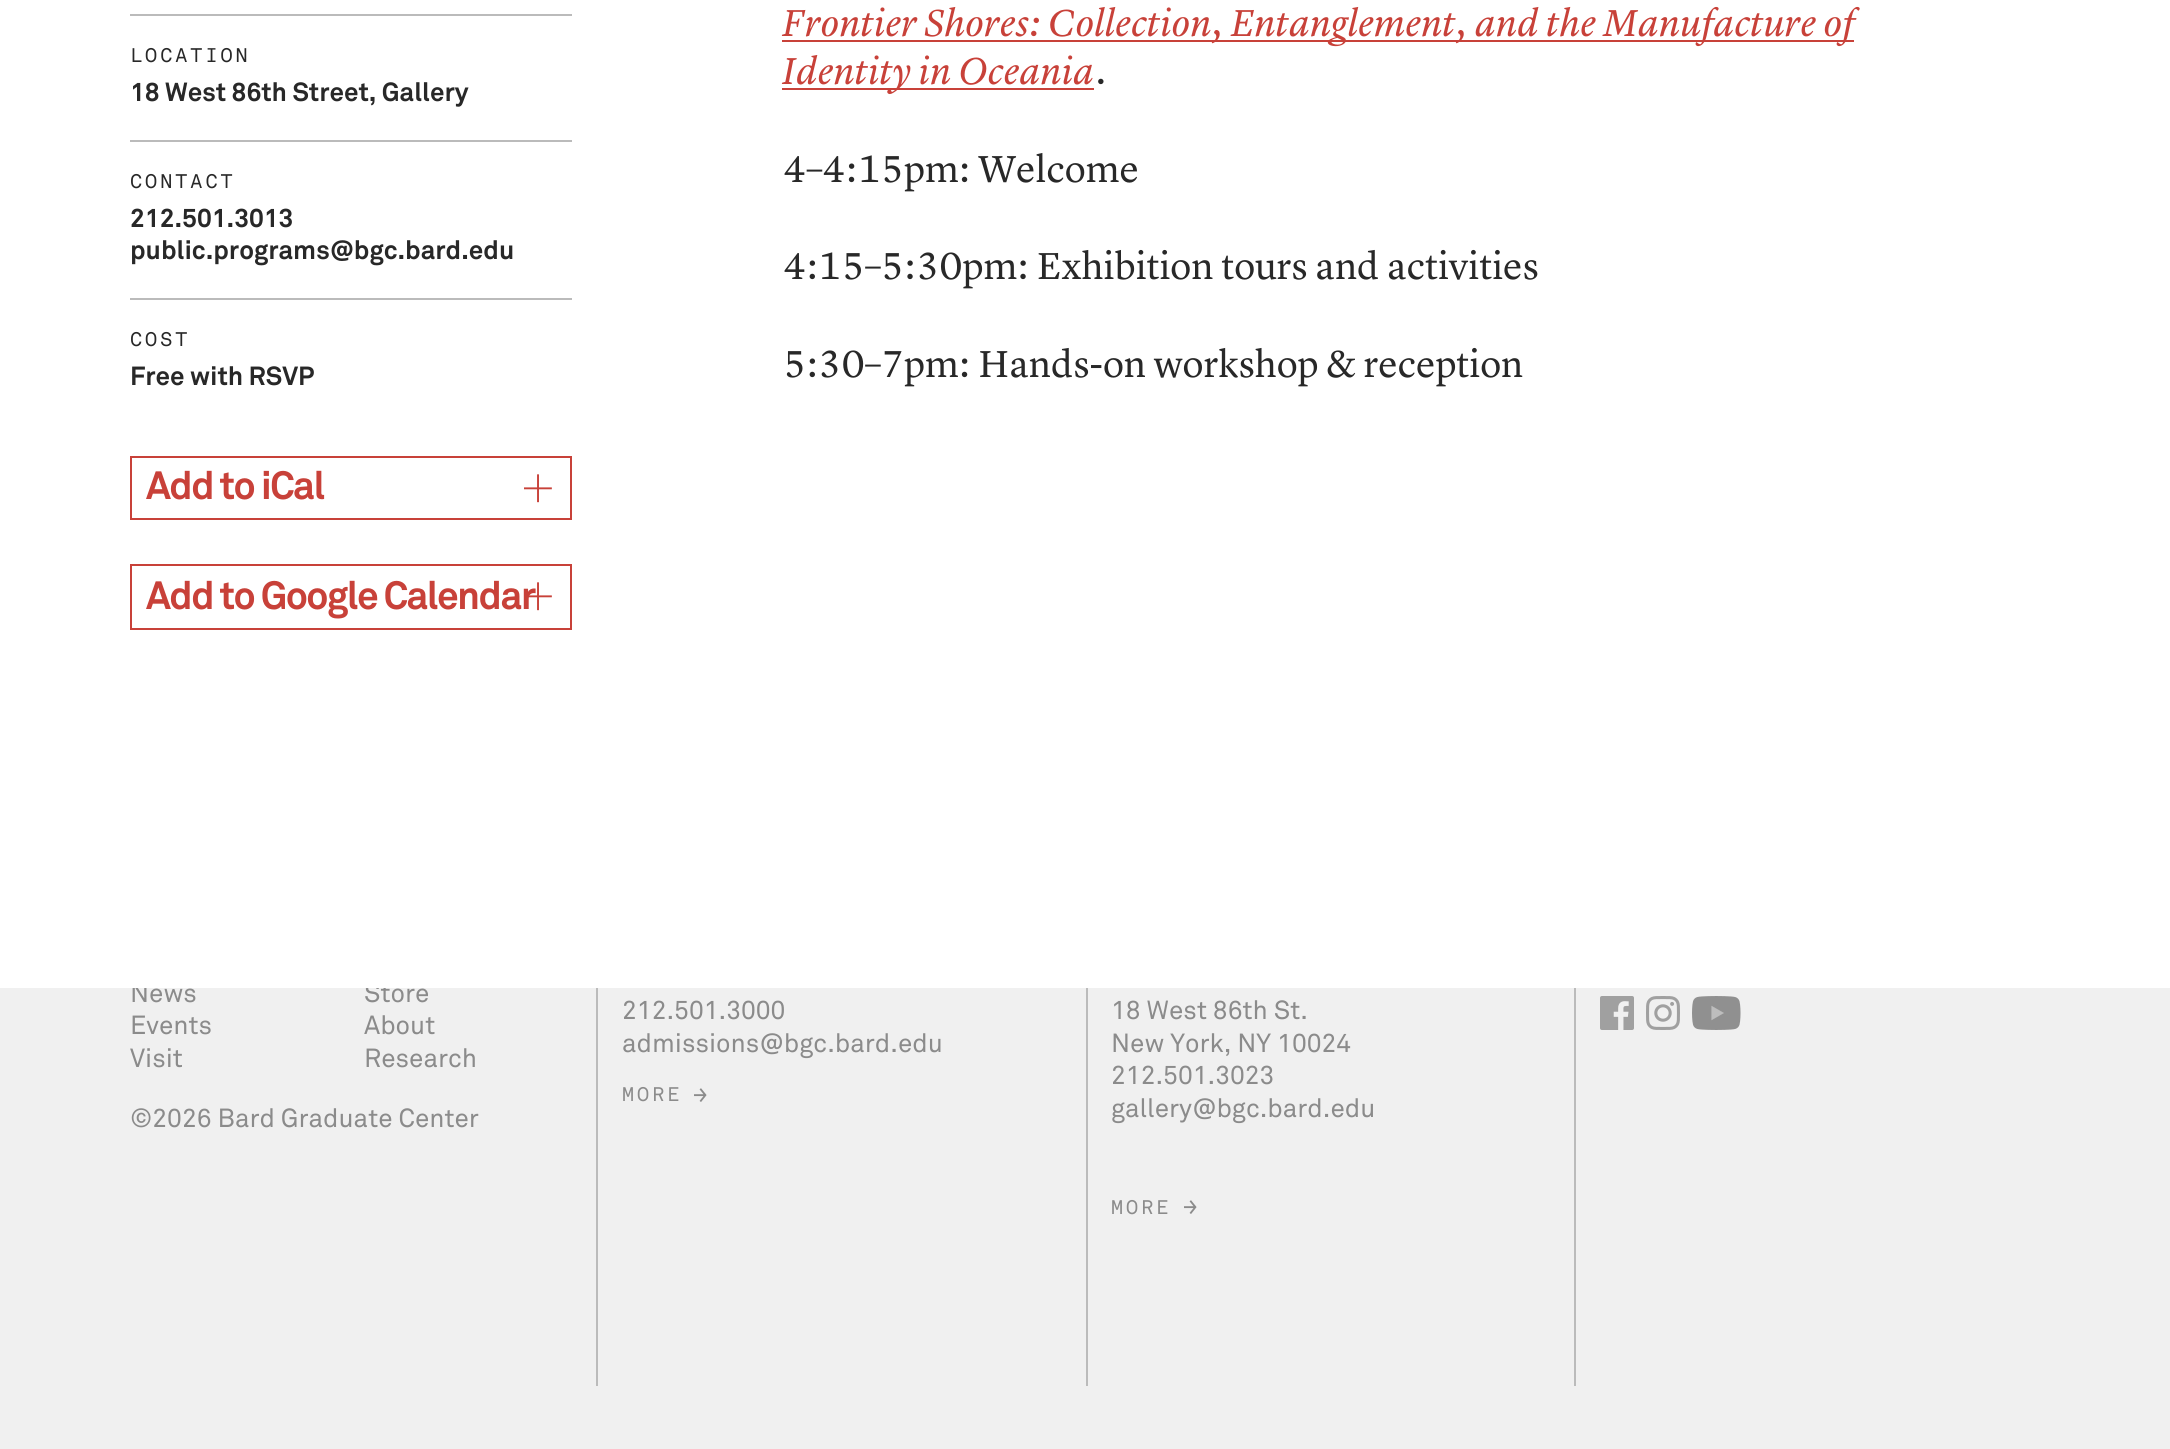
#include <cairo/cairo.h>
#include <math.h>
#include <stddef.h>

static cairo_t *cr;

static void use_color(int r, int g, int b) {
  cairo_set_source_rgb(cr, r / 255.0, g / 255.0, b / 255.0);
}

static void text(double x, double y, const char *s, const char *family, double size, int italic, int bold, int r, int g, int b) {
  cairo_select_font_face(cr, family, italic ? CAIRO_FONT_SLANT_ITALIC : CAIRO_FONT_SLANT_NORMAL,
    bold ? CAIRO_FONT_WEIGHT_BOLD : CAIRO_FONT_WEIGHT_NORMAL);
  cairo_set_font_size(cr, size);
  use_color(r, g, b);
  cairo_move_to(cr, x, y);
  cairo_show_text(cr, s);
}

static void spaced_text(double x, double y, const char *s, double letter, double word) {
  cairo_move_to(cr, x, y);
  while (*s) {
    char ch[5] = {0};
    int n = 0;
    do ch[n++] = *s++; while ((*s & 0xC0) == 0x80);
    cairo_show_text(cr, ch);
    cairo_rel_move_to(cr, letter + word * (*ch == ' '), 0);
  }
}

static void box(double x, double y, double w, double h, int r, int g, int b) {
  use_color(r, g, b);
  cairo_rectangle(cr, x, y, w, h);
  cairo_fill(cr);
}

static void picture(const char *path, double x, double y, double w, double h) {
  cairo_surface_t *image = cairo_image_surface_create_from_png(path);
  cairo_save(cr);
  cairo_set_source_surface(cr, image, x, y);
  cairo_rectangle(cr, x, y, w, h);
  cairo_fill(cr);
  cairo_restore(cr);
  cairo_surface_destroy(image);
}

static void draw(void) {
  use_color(240, 240, 240);
  cairo_paint(cr);
  box(596, 988, 2, 398, 187, 187, 187);
  picture("img_05.png", 694, 1088, 13, 14);
  box(1086, 988, 2, 398, 187, 187, 187);
  picture("img_05.png", 1184, 1200, 13, 14);
  box(1574, 988, 2, 398, 187, 187, 187);
  picture("img_06.png", 1600, 996, 34, 34);
  picture("img_07.png", 1646, 996, 34, 34);
  picture("img_08.png", 1692, 996, 49, 34);
  text(130, 1002, "News", "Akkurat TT", 26, 0, 0, 139, 139, 139);
  text(364, 1002, "Store", "Akkurat TT", 26, 0, 0, 139, 139, 139);
  box(0, 0, 2170, 988, 255, 255, 255);
  cairo_rectangle(cr, 131, 565, 440, 64);
  use_color(200, 65, 57);
  cairo_stroke(cr);
  cairo_select_font_face(cr, "Akkurat TT", CAIRO_FONT_SLANT_NORMAL, CAIRO_FONT_WEIGHT_BOLD);
  cairo_set_font_size(cr, 39);
  spaced_text(146, 609, "Add to Google Calendar", -1.6, 0);
  picture("img_02.png", 524, 582, 28, 29);
  cairo_rectangle(cr, 131, 457, 440, 62);
  cairo_stroke(cr);
  picture("img_01.png", 524, 474, 28, 29);
  spaced_text(146, 499, "Add to iCal", -1.6, 0);
  text(783, 377, "5:30–7pm: Hands-on workshop & reception", "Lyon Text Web", 39, 0, 0, 40, 40, 40);
  text(783, 279, "4:15–5:30pm: Exhibition tours and activities", "Lyon Text Web", 39, 0, 0, 40, 40, 40);
  text(783, 182, "4–4:15pm: Welcome", "Lyon Text Web", 39, 0, 0, 40, 40, 40);
  text(1095, 84, ".", "Lyon Text Web", 39, 0, 0, 40, 40, 40);
  box(782, 88, 312, 2, 200, 65, 57);
  picture("img_04.png", 781, 55, 312, 40);
  box(782, 40, 1072, 2, 200, 65, 57);
  picture("img_03.png", 781, 6, 1079, 41);
  text(130, 385, "Free with RSVP", "Akkurat TT", 26, 0, 1, 40, 40, 40);
  cairo_select_font_face(cr, "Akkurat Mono", CAIRO_FONT_SLANT_NORMAL, CAIRO_FONT_WEIGHT_NORMAL);
  cairo_set_font_size(cr, 19.5);
  spaced_text(130, 346, "COST", 3, 0);
  text(130, 259, "public.programs@bgc.bard.edu", "Akkurat TT", 26, 0, 1, 40, 40, 40);
  text(130, 227, "212.501.3013", "Akkurat TT", 26, 0, 1, 40, 40, 40);
  cairo_select_font_face(cr, "Akkurat Mono", CAIRO_FONT_SLANT_NORMAL, CAIRO_FONT_WEIGHT_NORMAL);
  cairo_set_font_size(cr, 19.5);
  spaced_text(130, 188, "CONTACT", 3, 0);
  text(130, 101, "18 West 86th Street, Gallery", "Akkurat TT", 26, 0, 1, 40, 40, 40);
  cairo_select_font_face(cr, "Akkurat Mono", CAIRO_FONT_SLANT_NORMAL, CAIRO_FONT_WEIGHT_NORMAL);
  cairo_set_font_size(cr, 19.5);
  spaced_text(130, 62, "LOCATION", 3, 0);
  box(130, 298, 442, 2, 187, 187, 187);
  box(130, 140, 442, 2, 187, 187, 187);
  box(130, 14, 442, 2, 187, 187, 187);
  text(130, 1034, "Events", "Akkurat TT", 26, 0, 0, 139, 139, 139);
  text(364, 1034, "About", "Akkurat TT", 26, 0, 0, 139, 139, 139);
  text(130, 1067, "Visit", "Akkurat TT", 26, 0, 0, 139, 139, 139);
  text(364, 1067, "Research", "Akkurat TT", 26, 0, 0, 139, 139, 139);
  text(130, 1127, "©2026 Bard Graduate Center", "Akkurat TT", 26, 0, 0, 139, 139, 139);
  text(622, 1019, "212.501.3000", "Akkurat TT", 26, 0, 0, 139, 139, 139);
  text(622, 1052, "admissions@bgc.bard.edu", "Akkurat TT", 26, 0, 0, 139, 139, 139);
  cairo_select_font_face(cr, "Akkurat Mono", CAIRO_FONT_SLANT_NORMAL, CAIRO_FONT_WEIGHT_NORMAL);
  cairo_set_font_size(cr, 19.5);
  spaced_text(622, 1101, "MORE", 3, 0);
  text(1111, 1019, "18 West 86th St.", "Akkurat TT", 26, 0, 0, 139, 139, 139);
  text(1111, 1052, "New York, NY 10024", "Akkurat TT", 26, 0, 0, 139, 139, 139);
  text(1111, 1084, "212.501.3023", "Akkurat TT", 26, 0, 0, 139, 139, 139);
  text(1111, 1117, "gallery@bgc.bard.edu", "Akkurat TT", 26, 0, 0, 139, 139, 139);
  cairo_select_font_face(cr, "Akkurat Mono", CAIRO_FONT_SLANT_NORMAL, CAIRO_FONT_WEIGHT_NORMAL);
  cairo_set_font_size(cr, 19.5);
  spaced_text(1111, 1214, "MORE", 3, 0);
}

int main(void) {
  cairo_surface_t *surface = cairo_image_surface_create(CAIRO_FORMAT_RGB24, 2170, 1449);
  cr = cairo_create(surface);
  cairo_font_options_t *options = cairo_font_options_create();
  cairo_font_options_set_hint_metrics(options, CAIRO_HINT_METRICS_OFF);
  cairo_font_options_set_hint_style(options, CAIRO_HINT_STYLE_NONE);
  cairo_set_font_options(cr, options);
  cairo_set_miter_limit(cr, 4);
  draw();
  cairo_surface_write_to_png(surface, "out.png");
  cairo_font_options_destroy(options);
  cairo_destroy(cr);
  cairo_surface_destroy(surface);
  return 0;
}
